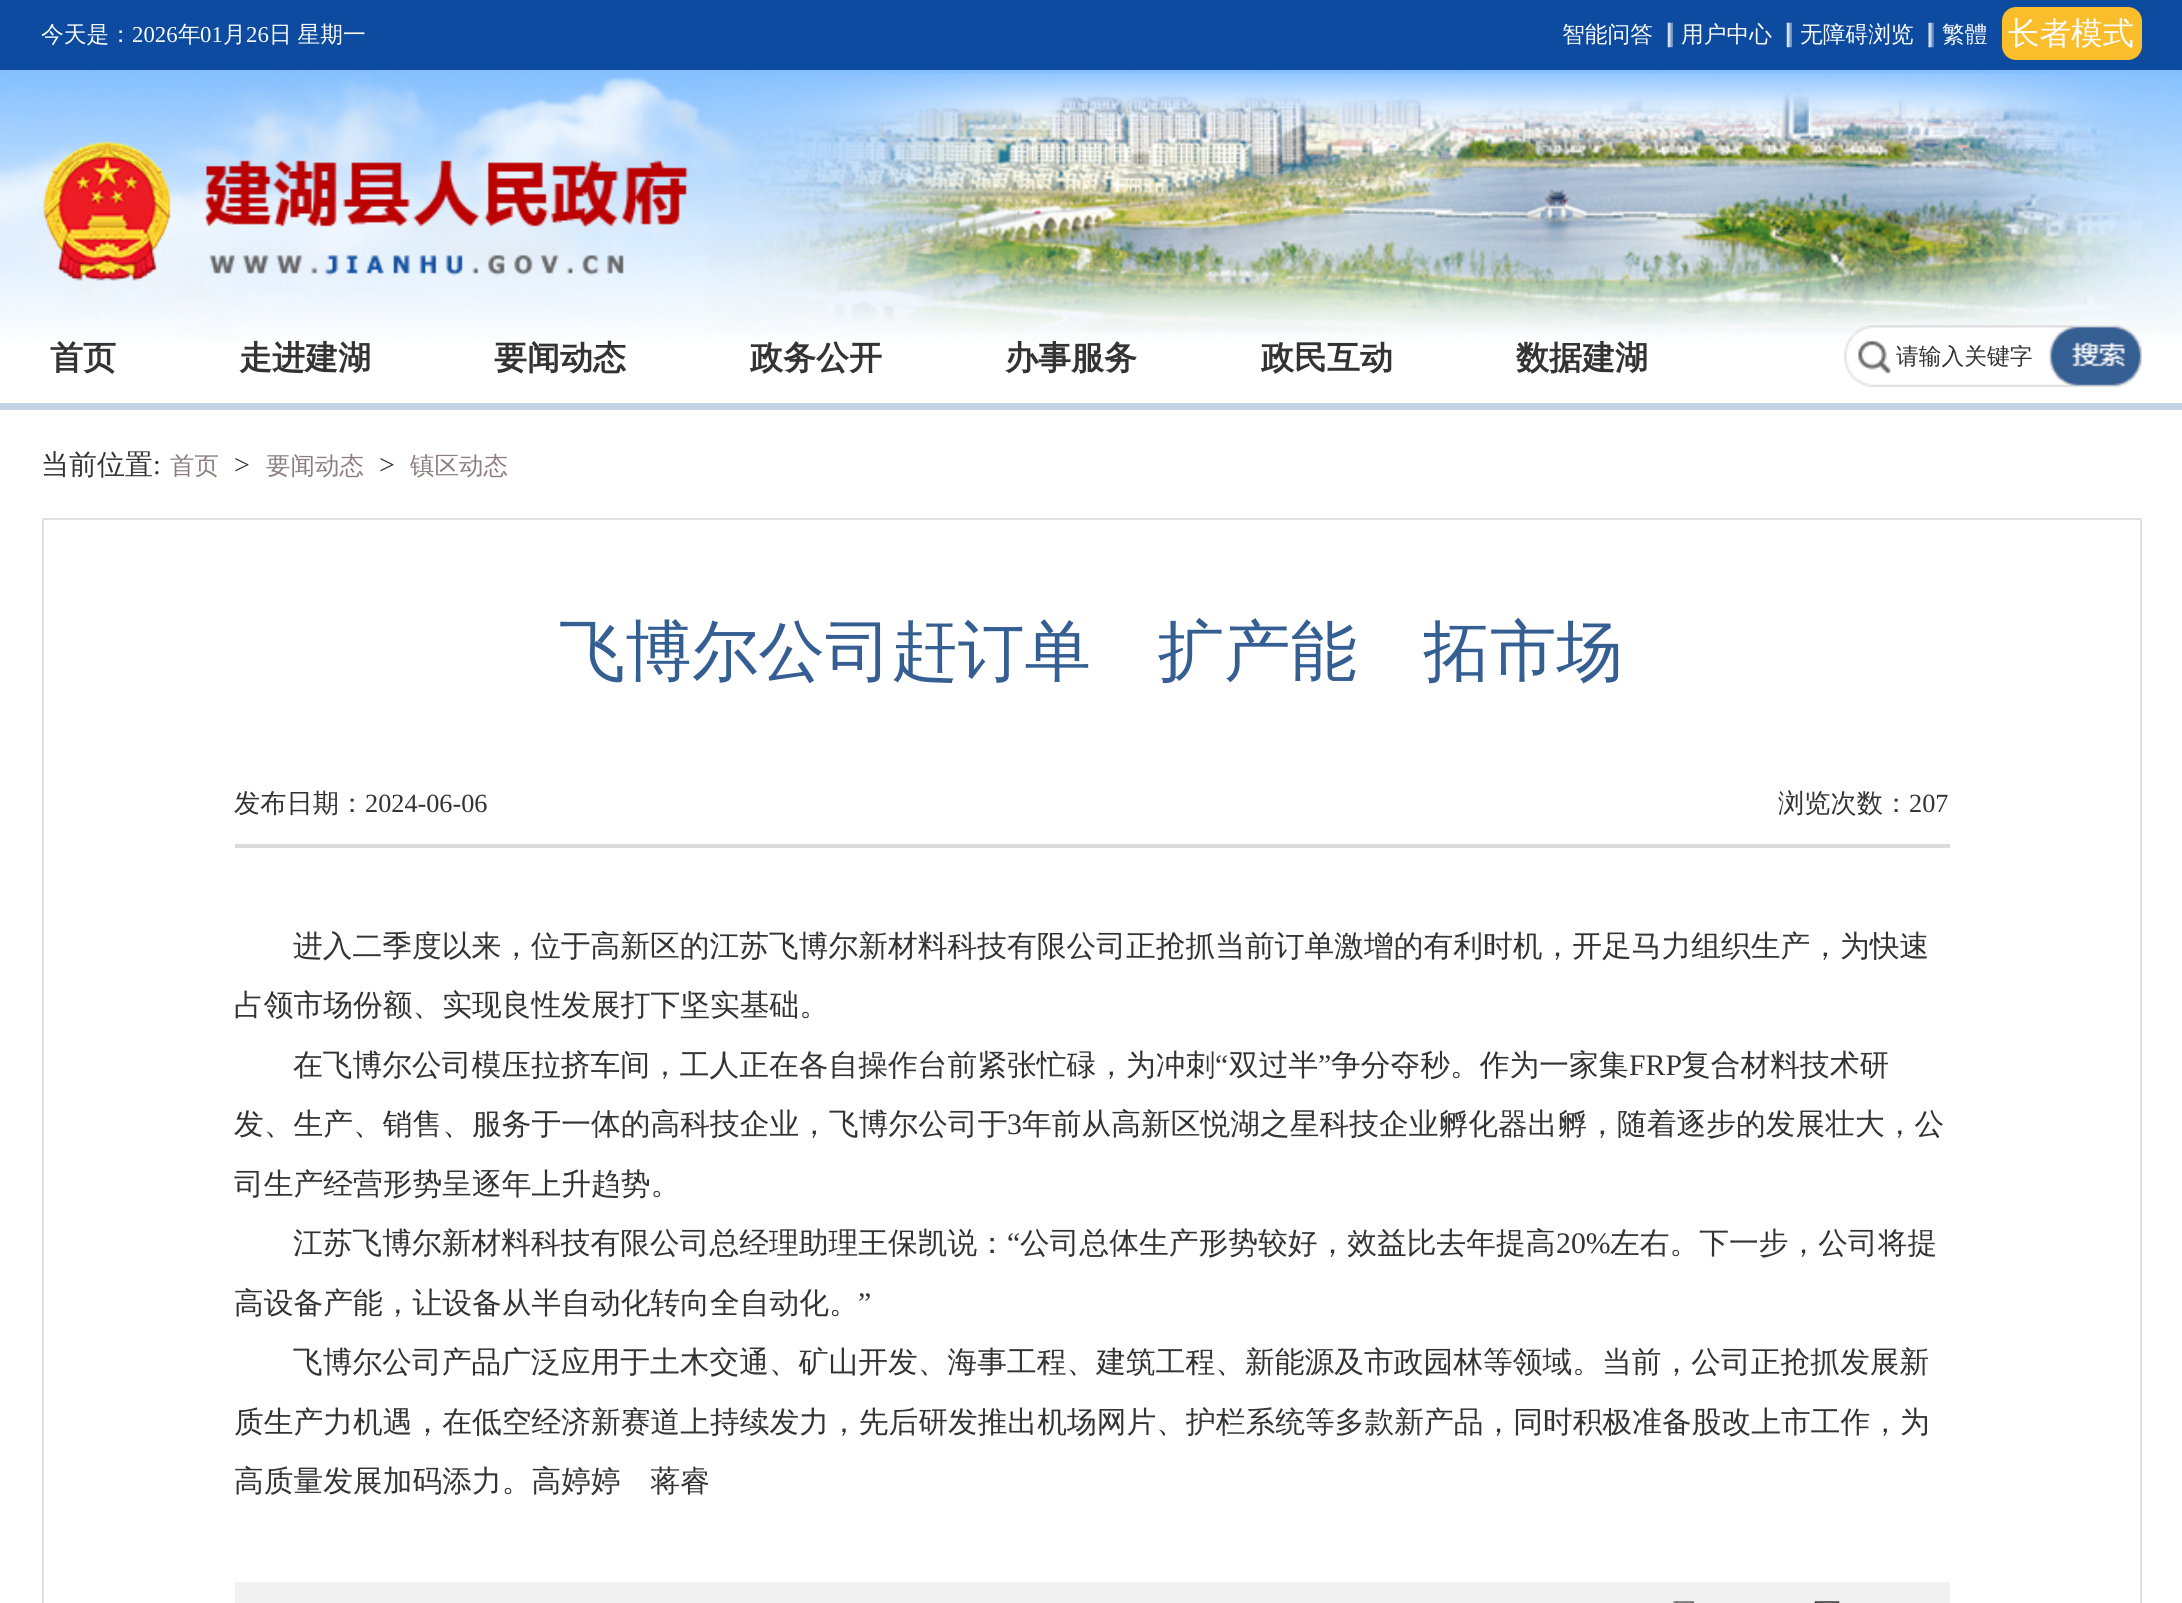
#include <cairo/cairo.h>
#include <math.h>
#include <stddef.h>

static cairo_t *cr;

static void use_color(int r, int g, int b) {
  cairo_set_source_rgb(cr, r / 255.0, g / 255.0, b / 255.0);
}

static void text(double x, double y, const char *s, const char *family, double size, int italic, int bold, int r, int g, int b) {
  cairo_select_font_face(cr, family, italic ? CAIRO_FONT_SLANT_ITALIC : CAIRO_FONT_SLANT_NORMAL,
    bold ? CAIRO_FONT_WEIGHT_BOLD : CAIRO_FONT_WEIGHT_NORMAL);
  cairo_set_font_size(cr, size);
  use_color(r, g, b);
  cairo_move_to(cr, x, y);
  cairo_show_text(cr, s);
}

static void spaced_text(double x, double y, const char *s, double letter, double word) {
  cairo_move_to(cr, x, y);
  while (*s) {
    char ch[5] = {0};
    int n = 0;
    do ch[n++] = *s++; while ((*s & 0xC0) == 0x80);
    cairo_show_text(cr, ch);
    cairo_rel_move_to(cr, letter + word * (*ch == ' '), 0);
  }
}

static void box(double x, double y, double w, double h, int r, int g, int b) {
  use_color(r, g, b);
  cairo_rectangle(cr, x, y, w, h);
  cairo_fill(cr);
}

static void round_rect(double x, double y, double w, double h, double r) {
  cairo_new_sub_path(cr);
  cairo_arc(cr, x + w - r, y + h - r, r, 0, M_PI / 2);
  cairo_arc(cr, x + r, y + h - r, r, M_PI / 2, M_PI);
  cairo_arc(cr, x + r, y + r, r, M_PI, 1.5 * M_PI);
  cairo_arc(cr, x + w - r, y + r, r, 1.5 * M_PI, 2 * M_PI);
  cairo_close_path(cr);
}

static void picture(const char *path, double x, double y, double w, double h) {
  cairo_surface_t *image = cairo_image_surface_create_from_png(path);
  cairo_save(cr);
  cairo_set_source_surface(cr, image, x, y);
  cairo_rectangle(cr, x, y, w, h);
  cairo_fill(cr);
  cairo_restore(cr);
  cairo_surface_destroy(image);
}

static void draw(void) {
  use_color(255, 255, 255);
  cairo_paint(cr);
  box(0, 0, 2182, 70, 12, 75, 160);
  picture("img_01.png", 1667, 22, 6, 26);
  picture("img_01.png", 1786, 22, 6, 26);
  picture("img_02.png", 1928, 22, 6, 26);
  use_color(250, 190, 45);
  round_rect(2002, 7, 140, 53, 14);
  cairo_fill(cr);
  picture("img_03.png", 0, 70, 2182, 273);
  box(0, 403, 2182, 7, 197, 211, 230);
  picture("img_04.png", 43, 141, 645, 140);
  picture("img_05.png", 1844, 325, 298, 62);
  cairo_rectangle(cr, 43, 519, 2098, 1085);
  use_color(225, 225, 225);
  cairo_stroke(cr);
  box(235, 844, 1715, 4, 219, 219, 219);
  box(235, 1582, 1715, 21, 241, 241, 241);
  picture("img_06.png", 1672, 1601, 23, 2);
  picture("img_07.png", 1814, 1601, 26, 2);
  text(41, 42, "今天是：", "WenQuanYi Zen Hei Medium", 22.75, 0, 0, 252, 252, 252);
  text(132, 42, "2026", "Liberation Serif", 22.75, 0, 0, 252, 252, 252);
  text(178, 42, "年", "WenQuanYi Zen Hei Medium", 22.75, 0, 0, 252, 252, 252);
  text(200, 42, "01", "Liberation Serif", 22.75, 0, 0, 252, 252, 252);
  text(223, 42, "月", "WenQuanYi Zen Hei Medium", 22.75, 0, 0, 252, 252, 252);
  text(246, 42, "26", "Liberation Serif", 22.75, 0, 0, 252, 252, 252);
  cairo_select_font_face(cr, "WenQuanYi Zen Hei Medium", CAIRO_FONT_SLANT_NORMAL, CAIRO_FONT_WEIGHT_NORMAL);
  spaced_text(269, 42, "日 星期一", 0, -1);
  text(1562, 42, "智能问答", "WenQuanYi Zen Hei Medium", 22.75, 0, 0, 252, 252, 252);
  text(1681, 42, "用户中心", "WenQuanYi Zen Hei Medium", 22.75, 0, 0, 252, 252, 252);
  text(1800, 42, "无障碍浏览", "WenQuanYi Zen Hei Medium", 22.75, 0, 0, 252, 252, 252);
  text(1942, 42, "繁體", "WenQuanYi Zen Hei Medium", 22.75, 0, 0, 252, 252, 252);
  text(2008, 44, "长者模式", "WenQuanYi Zen Hei Medium", 31.5, 0, 0, 252, 252, 252);
  text(50, 369, "首页", "WenQuanYi Zen Hei", 33, 0, 1, 51, 51, 51);
  text(239, 369, "走进建湖", "WenQuanYi Zen Hei", 33, 0, 1, 51, 51, 51);
  text(494, 369, "要闻动态", "WenQuanYi Zen Hei", 33, 0, 1, 51, 51, 51);
  text(750, 369, "政务公开", "WenQuanYi Zen Hei", 33, 0, 1, 51, 51, 51);
  text(1005, 369, "办事服务", "WenQuanYi Zen Hei", 33, 0, 1, 51, 51, 51);
  text(1261, 369, "政民互动", "WenQuanYi Zen Hei", 33, 0, 1, 51, 51, 51);
  text(1516, 369, "数据建湖", "WenQuanYi Zen Hei", 33, 0, 1, 51, 51, 51);
  text(1896, 364, "请输入关键字", "WenQuanYi Zen Hei Medium", 22.75, 0, 0, 51, 51, 51);
  text(41, 474, "当前位置", "WenQuanYi Zen Hei Medium", 28, 0, 0, 51, 51, 51);
  text(153, 474, ":", "Liberation Serif", 28, 0, 0, 51, 51, 51);
  text(170, 474, "首页", "WenQuanYi Zen Hei Medium", 24.5, 0, 0, 140, 126, 126);
  text(234, 474, ">", "Liberation Serif", 28, 0, 0, 51, 51, 51);
  text(266, 474, "要闻动态", "WenQuanYi Zen Hei Medium", 24.5, 0, 0, 140, 126, 126);
  text(379, 474, ">", "Liberation Serif", 28, 0, 0, 51, 51, 51);
  text(410, 474, "镇区动态", "WenQuanYi Zen Hei Medium", 24.5, 0, 0, 140, 126, 126);
  text(559, 674, "飞博尔公司赶订单　扩产能　拓市场", "WenQuanYi Zen Hei Medium", 66.5, 0, 0, 53, 94, 146);
  text(234, 812, "发布日期：", "WenQuanYi Zen Hei Medium", 26.25, 0, 0, 51, 51, 51);
  text(365, 812, "2024-06-06", "Liberation Serif", 26.25, 0, 0, 51, 51, 51);
  text(1778, 812, "浏览次数：", "WenQuanYi Zen Hei Medium", 26.25, 0, 0, 51, 51, 51);
  text(1909, 812, "207", "Liberation Serif", 26.25, 0, 0, 51, 51, 51);
  text(293, 956, "进入二季度以来，位于高新区的江苏飞博尔新材料科技有限公司正抢抓当前订单激增的有利时机，开足马力组织生产，为快速", "WenQuanYi Zen Hei Medium", 29.75, 0, 0, 51, 51, 51);
  text(234, 1015, "占领市场份额、实现良性发展打下坚实基础。", "WenQuanYi Zen Hei Medium", 29.75, 0, 0, 51, 51, 51);
  text(293, 1075, "在飞博尔公司模压拉挤车间，工人正在各自操作台前紧张忙碌，为冲刺", "WenQuanYi Zen Hei Medium", 29.75, 0, 0, 51, 51, 51);
  text(1215, 1075, "“", "Liberation Serif", 29.75, 0, 0, 51, 51, 51);
  text(1229, 1075, "双过半", "WenQuanYi Zen Hei Medium", 29.75, 0, 0, 51, 51, 51);
  text(1318, 1075, "”", "Liberation Serif", 29.75, 0, 0, 51, 51, 51);
  text(1331, 1075, "争分夺秒。作为一家集", "WenQuanYi Zen Hei Medium", 29.75, 0, 0, 51, 51, 51);
  text(1629, 1075, "FRP", "Liberation Serif", 29.75, 0, 0, 51, 51, 51);
  text(1681, 1075, "复合材料技术研", "WenQuanYi Zen Hei Medium", 29.75, 0, 0, 51, 51, 51);
  text(234, 1134, "发、生产、销售、服务于一体的高科技企业，飞博尔公司于", "WenQuanYi Zen Hei Medium", 29.75, 0, 0, 51, 51, 51);
  text(1007, 1134, "3", "Liberation Serif", 29.75, 0, 0, 51, 51, 51);
  text(1022, 1134, "年前从高新区悦湖之星科技企业孵化器出孵，随着逐步的发展壮大，公", "WenQuanYi Zen Hei Medium", 29.75, 0, 0, 51, 51, 51);
  text(234, 1194, "司生产经营形势呈逐年上升趋势。", "WenQuanYi Zen Hei Medium", 29.75, 0, 0, 51, 51, 51);
  text(293, 1253, "江苏飞博尔新材料科技有限公司总经理助理王保凯说：", "WenQuanYi Zen Hei Medium", 29.75, 0, 0, 51, 51, 51);
  text(1007, 1253, "“", "Liberation Serif", 29.75, 0, 0, 51, 51, 51);
  text(1020, 1253, "公司总体生产形势较好，效益比去年提高", "WenQuanYi Zen Hei Medium", 29.75, 0, 0, 51, 51, 51);
  text(1556, 1253, "20%", "Liberation Serif", 29.75, 0, 0, 51, 51, 51);
  text(1610, 1253, "左右。下一步，公司将提", "WenQuanYi Zen Hei Medium", 29.75, 0, 0, 51, 51, 51);
  text(234, 1313, "高设备产能，让设备从半自动化转向全自动化。", "WenQuanYi Zen Hei Medium", 29.75, 0, 0, 51, 51, 51);
  text(858, 1313, "”", "Liberation Serif", 29.75, 0, 0, 51, 51, 51);
  text(293, 1372, "飞博尔公司产品广泛应用于土木交通、矿山开发、海事工程、建筑工程、新能源及市政园林等领域。当前，公司正抢抓发展新", "WenQuanYi Zen Hei Medium", 29.75, 0, 0, 51, 51, 51);
  text(234, 1432, "质生产力机遇，在低空经济新赛道上持续发力，先后研发推出机场网片、护栏系统等多款新产品，同时积极准备股改上市工作，为", "WenQuanYi Zen Hei Medium", 29.75, 0, 0, 51, 51, 51);
  text(234, 1491, "高质量发展加码添力。高婷婷　蒋睿", "WenQuanYi Zen Hei Medium", 29.75, 0, 0, 51, 51, 51);
}

int main(void) {
  cairo_surface_t *surface = cairo_image_surface_create(CAIRO_FORMAT_RGB24, 2182, 1603);
  cr = cairo_create(surface);
  cairo_font_options_t *options = cairo_font_options_create();
  cairo_font_options_set_hint_metrics(options, CAIRO_HINT_METRICS_OFF);
  cairo_font_options_set_hint_style(options, CAIRO_HINT_STYLE_NONE);
  cairo_set_font_options(cr, options);
  cairo_set_miter_limit(cr, 4);
  draw();
  cairo_surface_write_to_png(surface, "out.png");
  cairo_font_options_destroy(options);
  cairo_destroy(cr);
  cairo_surface_destroy(surface);
  return 0;
}
